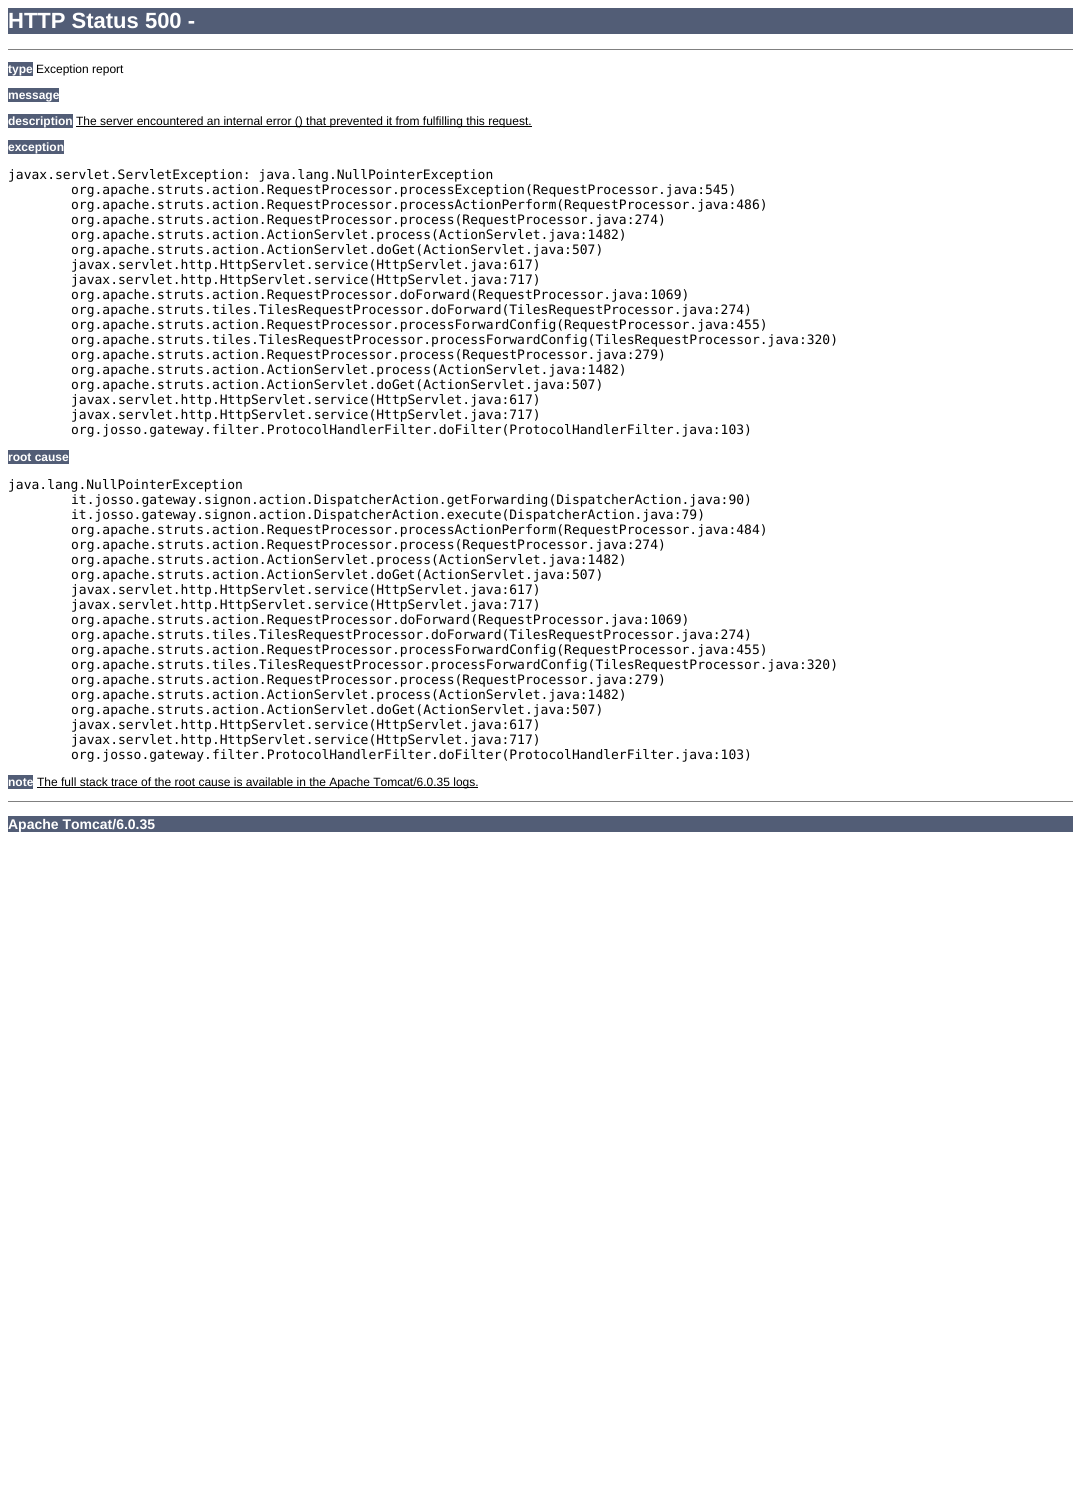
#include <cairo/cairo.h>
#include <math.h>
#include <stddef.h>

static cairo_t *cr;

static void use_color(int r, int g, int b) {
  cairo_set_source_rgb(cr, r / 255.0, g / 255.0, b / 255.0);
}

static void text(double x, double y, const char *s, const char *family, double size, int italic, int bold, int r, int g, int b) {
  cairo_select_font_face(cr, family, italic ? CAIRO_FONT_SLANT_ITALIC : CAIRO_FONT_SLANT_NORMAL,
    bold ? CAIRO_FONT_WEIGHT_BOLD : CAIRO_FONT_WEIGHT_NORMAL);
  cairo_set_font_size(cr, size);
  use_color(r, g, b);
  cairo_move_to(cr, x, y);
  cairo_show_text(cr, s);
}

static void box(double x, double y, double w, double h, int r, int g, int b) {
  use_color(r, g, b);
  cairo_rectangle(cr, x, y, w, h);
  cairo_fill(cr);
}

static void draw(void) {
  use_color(255, 255, 255);
  cairo_paint(cr);
  box(8, 8, 1065, 26, 82, 93, 118);
  box(8, 49, 1065, 1, 128, 128, 128);
  box(8, 62, 25, 14, 82, 93, 118);
  box(8, 88, 51, 14, 82, 93, 118);
  box(8, 114, 65, 14, 82, 93, 118);
  box(76, 126, 456, 1, 0, 0, 0);
  box(8, 140, 56, 14, 82, 93, 118);
  box(8, 450, 61, 14, 82, 93, 118);
  box(8, 775, 25, 14, 82, 93, 118);
  box(37, 787, 441, 1, 0, 0, 0);
  box(8, 801, 1065, 1, 128, 128, 128);
  box(8, 816, 1065, 16, 82, 93, 118);
  text(8, 28, "HTTP Status 500 -", "Liberation Sans", 22, 0, 1, 255, 255, 255);
  text(8, 73, "type", "Liberation Sans", 12, 0, 1, 255, 255, 255);
  text(36, 73, "Exception report", "Liberation Sans", 12, 0, 0, 0, 0, 0);
  text(8, 99, "message", "Liberation Sans", 12, 0, 1, 255, 255, 255);
  text(8, 125, "description", "Liberation Sans", 12, 0, 1, 255, 255, 255);
  text(76, 125, "The server encountered an internal error () that prevented it from fulfilling this request.", "Liberation Sans", 12, 0, 0, 0, 0, 0);
  text(8, 151, "exception", "Liberation Sans", 12, 0, 1, 255, 255, 255);
  text(8, 179, "javax.servlet.ServletException: java.lang.NullPointerException", "DejaVu Sans Mono", 13, 0, 0, 0, 0, 0);
  text(71, 194, "org.apache.struts.action.RequestProcessor.processException(RequestProcessor.java:545)", "DejaVu Sans Mono", 13, 0, 0, 0, 0, 0);
  text(71, 209, "org.apache.struts.action.RequestProcessor.processActionPerform(RequestProcessor.java:486)", "DejaVu Sans Mono", 13, 0, 0, 0, 0, 0);
  text(71, 224, "org.apache.struts.action.RequestProcessor.process(RequestProcessor.java:274)", "DejaVu Sans Mono", 13, 0, 0, 0, 0, 0);
  text(71, 239, "org.apache.struts.action.ActionServlet.process(ActionServlet.java:1482)", "DejaVu Sans Mono", 13, 0, 0, 0, 0, 0);
  text(71, 254, "org.apache.struts.action.ActionServlet.doGet(ActionServlet.java:507)", "DejaVu Sans Mono", 13, 0, 0, 0, 0, 0);
  text(71, 269, "javax.servlet.http.HttpServlet.service(HttpServlet.java:617)", "DejaVu Sans Mono", 13, 0, 0, 0, 0, 0);
  text(71, 284, "javax.servlet.http.HttpServlet.service(HttpServlet.java:717)", "DejaVu Sans Mono", 13, 0, 0, 0, 0, 0);
  text(71, 299, "org.apache.struts.action.RequestProcessor.doForward(RequestProcessor.java:1069)", "DejaVu Sans Mono", 13, 0, 0, 0, 0, 0);
  text(71, 314, "org.apache.struts.tiles.TilesRequestProcessor.doForward(TilesRequestProcessor.java:274)", "DejaVu Sans Mono", 13, 0, 0, 0, 0, 0);
  text(71, 329, "org.apache.struts.action.RequestProcessor.processForwardConfig(RequestProcessor.java:455)", "DejaVu Sans Mono", 13, 0, 0, 0, 0, 0);
  text(71, 344, "org.apache.struts.tiles.TilesRequestProcessor.processForwardConfig(TilesRequestProcessor.java:320)", "DejaVu Sans Mono", 13, 0, 0, 0, 0, 0);
  text(71, 359, "org.apache.struts.action.RequestProcessor.process(RequestProcessor.java:279)", "DejaVu Sans Mono", 13, 0, 0, 0, 0, 0);
  text(71, 374, "org.apache.struts.action.ActionServlet.process(ActionServlet.java:1482)", "DejaVu Sans Mono", 13, 0, 0, 0, 0, 0);
  text(71, 389, "org.apache.struts.action.ActionServlet.doGet(ActionServlet.java:507)", "DejaVu Sans Mono", 13, 0, 0, 0, 0, 0);
  text(71, 404, "javax.servlet.http.HttpServlet.service(HttpServlet.java:617)", "DejaVu Sans Mono", 13, 0, 0, 0, 0, 0);
  text(71, 419, "javax.servlet.http.HttpServlet.service(HttpServlet.java:717)", "DejaVu Sans Mono", 13, 0, 0, 0, 0, 0);
  text(71, 434, "org.josso.gateway.filter.ProtocolHandlerFilter.doFilter(ProtocolHandlerFilter.java:103)", "DejaVu Sans Mono", 13, 0, 0, 0, 0, 0);
  text(8, 461, "root cause", "Liberation Sans", 12, 0, 1, 255, 255, 255);
  text(8, 489, "java.lang.NullPointerException", "DejaVu Sans Mono", 13, 0, 0, 0, 0, 0);
  text(71, 504, "it.josso.gateway.signon.action.DispatcherAction.getForwarding(DispatcherAction.java:90)", "DejaVu Sans Mono", 13, 0, 0, 0, 0, 0);
  text(71, 519, "it.josso.gateway.signon.action.DispatcherAction.execute(DispatcherAction.java:79)", "DejaVu Sans Mono", 13, 0, 0, 0, 0, 0);
  text(71, 534, "org.apache.struts.action.RequestProcessor.processActionPerform(RequestProcessor.java:484)", "DejaVu Sans Mono", 13, 0, 0, 0, 0, 0);
  text(71, 549, "org.apache.struts.action.RequestProcessor.process(RequestProcessor.java:274)", "DejaVu Sans Mono", 13, 0, 0, 0, 0, 0);
  text(71, 564, "org.apache.struts.action.ActionServlet.process(ActionServlet.java:1482)", "DejaVu Sans Mono", 13, 0, 0, 0, 0, 0);
  text(71, 579, "org.apache.struts.action.ActionServlet.doGet(ActionServlet.java:507)", "DejaVu Sans Mono", 13, 0, 0, 0, 0, 0);
  text(71, 594, "javax.servlet.http.HttpServlet.service(HttpServlet.java:617)", "DejaVu Sans Mono", 13, 0, 0, 0, 0, 0);
  text(71, 609, "javax.servlet.http.HttpServlet.service(HttpServlet.java:717)", "DejaVu Sans Mono", 13, 0, 0, 0, 0, 0);
  text(71, 624, "org.apache.struts.action.RequestProcessor.doForward(RequestProcessor.java:1069)", "DejaVu Sans Mono", 13, 0, 0, 0, 0, 0);
  text(71, 639, "org.apache.struts.tiles.TilesRequestProcessor.doForward(TilesRequestProcessor.java:274)", "DejaVu Sans Mono", 13, 0, 0, 0, 0, 0);
  text(71, 654, "org.apache.struts.action.RequestProcessor.processForwardConfig(RequestProcessor.java:455)", "DejaVu Sans Mono", 13, 0, 0, 0, 0, 0);
  text(71, 669, "org.apache.struts.tiles.TilesRequestProcessor.processForwardConfig(TilesRequestProcessor.java:320)", "DejaVu Sans Mono", 13, 0, 0, 0, 0, 0);
  text(71, 684, "org.apache.struts.action.RequestProcessor.process(RequestProcessor.java:279)", "DejaVu Sans Mono", 13, 0, 0, 0, 0, 0);
  text(71, 699, "org.apache.struts.action.ActionServlet.process(ActionServlet.java:1482)", "DejaVu Sans Mono", 13, 0, 0, 0, 0, 0);
  text(71, 714, "org.apache.struts.action.ActionServlet.doGet(ActionServlet.java:507)", "DejaVu Sans Mono", 13, 0, 0, 0, 0, 0);
  text(71, 729, "javax.servlet.http.HttpServlet.service(HttpServlet.java:617)", "DejaVu Sans Mono", 13, 0, 0, 0, 0, 0);
  text(71, 744, "javax.servlet.http.HttpServlet.service(HttpServlet.java:717)", "DejaVu Sans Mono", 13, 0, 0, 0, 0, 0);
  text(71, 759, "org.josso.gateway.filter.ProtocolHandlerFilter.doFilter(ProtocolHandlerFilter.java:103)", "DejaVu Sans Mono", 13, 0, 0, 0, 0, 0);
  text(8, 786, "note", "Liberation Sans", 12, 0, 1, 255, 255, 255);
  text(37, 786, "The full stack trace of the root cause is available in the Apache Tomcat/6.0.35 logs.", "Liberation Sans", 12, 0, 0, 0, 0, 0);
  text(8, 829, "Apache Tomcat/6.0.35", "Liberation Sans", 14, 0, 1, 255, 255, 255);
}

int main(void) {
  cairo_surface_t *surface = cairo_image_surface_create(CAIRO_FORMAT_RGB24, 1081, 1485);
  cr = cairo_create(surface);
  cairo_font_options_t *options = cairo_font_options_create();
  cairo_font_options_set_hint_metrics(options, CAIRO_HINT_METRICS_OFF);
  cairo_font_options_set_hint_style(options, CAIRO_HINT_STYLE_NONE);
  cairo_set_font_options(cr, options);
  cairo_set_miter_limit(cr, 4);
  draw();
  cairo_surface_write_to_png(surface, "out.png");
  cairo_font_options_destroy(options);
  cairo_destroy(cr);
  cairo_surface_destroy(surface);
  return 0;
}
